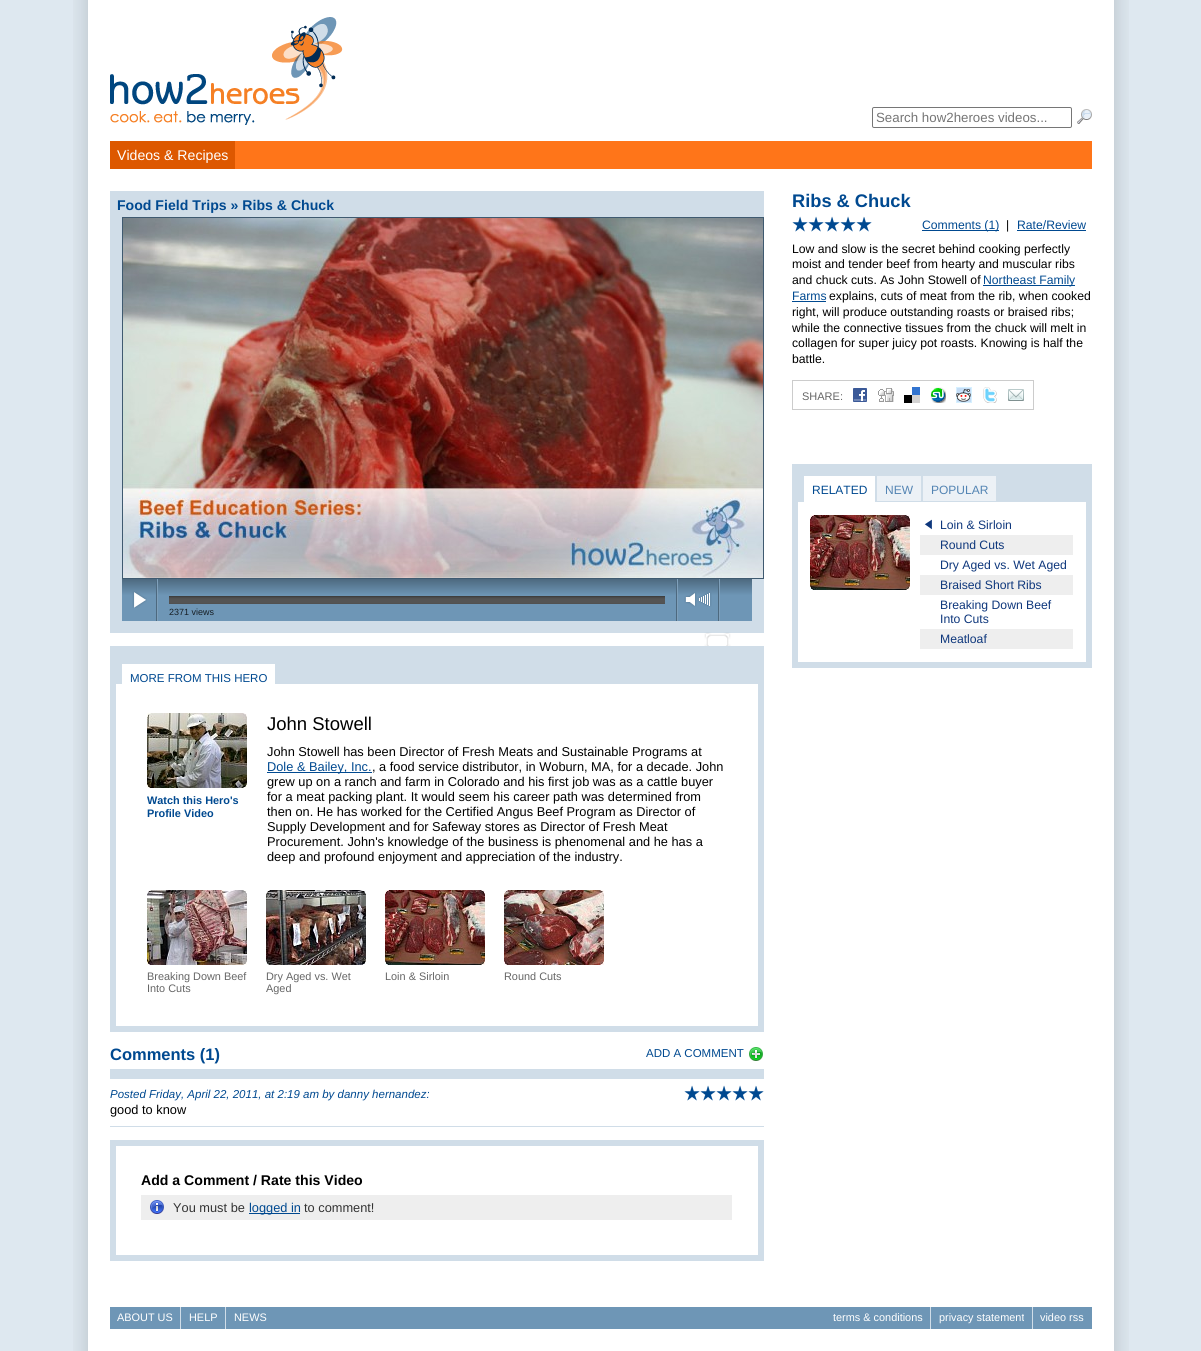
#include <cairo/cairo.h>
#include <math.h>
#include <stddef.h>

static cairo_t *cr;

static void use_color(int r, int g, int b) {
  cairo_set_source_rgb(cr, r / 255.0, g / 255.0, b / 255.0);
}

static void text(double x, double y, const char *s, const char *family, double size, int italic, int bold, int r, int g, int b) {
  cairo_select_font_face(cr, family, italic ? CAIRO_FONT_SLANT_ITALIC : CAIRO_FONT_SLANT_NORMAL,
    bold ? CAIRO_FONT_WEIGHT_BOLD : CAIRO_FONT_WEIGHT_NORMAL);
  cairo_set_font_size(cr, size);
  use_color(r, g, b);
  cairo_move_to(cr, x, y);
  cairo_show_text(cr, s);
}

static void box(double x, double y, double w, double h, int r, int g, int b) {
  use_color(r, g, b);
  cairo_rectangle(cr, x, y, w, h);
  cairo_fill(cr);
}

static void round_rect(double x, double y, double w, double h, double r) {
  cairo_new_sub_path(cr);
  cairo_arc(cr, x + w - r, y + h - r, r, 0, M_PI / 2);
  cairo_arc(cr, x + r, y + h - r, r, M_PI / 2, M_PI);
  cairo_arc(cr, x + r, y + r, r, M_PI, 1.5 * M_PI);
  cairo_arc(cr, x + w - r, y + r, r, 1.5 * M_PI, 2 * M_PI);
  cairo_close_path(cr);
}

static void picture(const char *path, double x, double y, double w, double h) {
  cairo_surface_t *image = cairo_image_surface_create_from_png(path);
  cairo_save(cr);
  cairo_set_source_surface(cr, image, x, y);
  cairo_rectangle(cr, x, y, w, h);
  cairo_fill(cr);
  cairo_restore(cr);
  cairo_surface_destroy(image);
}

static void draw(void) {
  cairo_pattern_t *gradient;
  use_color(222, 232, 240);
  cairo_paint(cr);
  picture("img_01.png", 73, 0, 1056, 1351);
  picture("img_02.png", 110, 17, 233, 108);
  round_rect(872.5, 107.5, 199, 20, 1.5);
  use_color(118, 118, 118);
  cairo_set_line_width(cr, 1);
  cairo_stroke(cr);
  picture("img_03.png", 1077, 109, 15, 15);
  box(235, 141, 857, 28, 255, 117, 25);
  box(110, 141, 125, 28, 221, 88, 0);
  box(110, 191, 654, 442, 208, 221, 232);
  cairo_rectangle(cr, 122.5, 217.5, 641, 361);
  use_color(63, 90, 112);
  cairo_stroke(cr);
  picture("img_04.png", 123, 218, 640, 360);
  gradient = cairo_pattern_create_linear(122, 621, 122, 579);
  cairo_pattern_add_color_stop_rgba(gradient, 0.61, 0.431, 0.588, 0.714, 1);
  cairo_pattern_add_color_stop_rgba(gradient, 1, 0.302, 0.412, 0.498, 1);
  cairo_set_source(cr, gradient);
  cairo_pattern_destroy(gradient);
  cairo_rectangle(cr, 122, 579, 630, 42);
  cairo_fill(cr);
  picture("img_05.png", 132, 591, 15, 17);
  box(156, 579, 1, 42, 77, 105, 127);
  box(157, 579, 1, 42, 127, 160, 187);
  box(676, 579, 1, 42, 77, 105, 127);
  box(677, 579, 1, 42, 127, 160, 187);
  picture("img_06.png", 684, 592, 13, 15);
  picture("img_07.png", 697, 592, 15, 15);
  picture("img_08.png", 699, 593, 11, 13);
  box(718, 579, 1, 42, 77, 105, 127);
  box(719, 579, 1, 42, 127, 160, 187);
  picture("img_09.png", 169, 596, 496, 8);
  picture("img_10.png", 704, 632, 27, 14);
  cairo_rectangle(cr, 113, 649, 648, 380);
  use_color(208, 221, 232);
  cairo_set_line_width(cr, 6);
  cairo_stroke(cr);
  box(116, 652, 642, 32, 208, 221, 232);
  box(122, 664, 153, 20, 255, 255, 255);
  picture("img_11.png", 147, 713, 100, 75);
  box(267, 772, 105, 1, 0, 73, 144);
  picture("img_12.png", 147, 890, 100, 75);
  picture("img_13.png", 266, 890, 100, 75);
  picture("img_14.png", 385, 890, 100, 75);
  picture("img_15.png", 504, 890, 100, 75);
  box(110, 1069, 654, 10, 208, 221, 232);
  picture("img_16.png", 749, 1047, 14, 14);
  box(110, 1126, 654, 1, 208, 221, 232);
  picture("img_17.png", 684, 1085, 80, 16);
  cairo_rectangle(cr, 113, 1143, 648, 115);
  cairo_stroke(cr);
  box(141, 1195, 591, 25, 238, 238, 238);
  picture("img_18.png", 150, 1200, 14, 14);
  box(249, 1213, 51, 1, 0, 73, 144);
  picture("img_17.png", 792, 216, 80, 16);
  box(922, 230, 77, 1, 0, 73, 144);
  box(1017, 230, 69, 1, 0, 73, 144);
  box(983, 285, 92, 1, 0, 73, 144);
  box(792, 301, 34, 1, 0, 73, 144);
  cairo_rectangle(cr, 792.5, 380.5, 241, 29);
  use_color(204, 204, 204);
  cairo_set_line_width(cr, 1);
  cairo_stroke(cr);
  picture("img_19.png", 853, 388, 14, 14);
  picture("img_20.png", 878, 388, 16, 14);
  picture("img_21.png", 904, 387, 16, 16);
  picture("img_22.png", 930, 387, 16, 16);
  picture("img_23.png", 956, 387, 16, 16);
  picture("img_24.png", 983, 387, 14, 16);
  picture("img_25.png", 1008, 389, 16, 12);
  cairo_rectangle(cr, 795, 467, 294, 198);
  use_color(208, 221, 232);
  cairo_set_line_width(cr, 6);
  cairo_stroke(cr);
  box(798, 470, 288, 32, 208, 221, 232);
  box(804, 476, 71, 26, 255, 255, 255);
  box(877, 476, 44, 25, 236, 241, 246);
  box(923, 476, 73, 25, 236, 241, 246);
  picture("img_14.png", 810, 515, 100, 75);
  picture("img_26.png", 924, 519, 8, 11);
  box(920, 535, 153, 20, 238, 238, 238);
  box(920, 575, 153, 20, 238, 238, 238);
  box(920, 629, 153, 20, 238, 238, 238);
  box(110, 1307, 982, 22, 110, 150, 182);
  box(180, 1307, 1, 22, 208, 221, 232);
  box(225, 1307, 1, 22, 208, 221, 232);
  box(930, 1307, 1, 22, 208, 221, 232);
  box(1032, 1307, 1, 22, 208, 221, 232);
  text(876, 122, "Search how2heroes videos...", "Liberation Sans", 13.3, 0, 0, 117, 117, 117);
  text(117, 160, "Videos & Recipes", "Liberation Sans", 14.1, 0, 0, 255, 255, 255);
  text(117, 210, "Food Field Trips » Ribs & Chuck", "Liberation Sans", 14.1, 0, 1, 0, 73, 144);
  text(169, 615, "2371 views", "Liberation Sans", 9, 0, 0, 22, 30, 36);
  text(130, 682, "MORE FROM THIS HERO", "Liberation Sans", 11.5, 0, 0, 0, 73, 144);
  text(147, 804, "Watch this Hero's", "Liberation Sans", 10.9, 0, 1, 0, 73, 144);
  text(147, 817, "Profile Video", "Liberation Sans", 10.9, 0, 1, 0, 73, 144);
  text(267, 730, "John Stowell", "Liberation Sans", 18.5, 0, 0, 0, 0, 0);
  text(267, 756, "John Stowell has been Director of Fresh Meats and Sustainable Programs at", "Liberation Sans", 12.8, 0, 0, 0, 0, 0);
  text(267, 771, "Dole & Bailey, Inc.", "Liberation Sans", 12.8, 0, 0, 0, 73, 144);
  text(372, 771, ", a food service distributor, in Woburn, MA, for a decade. John", "Liberation Sans", 12.8, 0, 0, 0, 0, 0);
  text(267, 786, "grew up on a ranch and farm in Colorado and his first job was as a cattle buyer", "Liberation Sans", 12.8, 0, 0, 0, 0, 0);
  text(267, 801, "for a meat packing plant. It would seem his career path was determined from", "Liberation Sans", 12.8, 0, 0, 0, 0, 0);
  text(267, 816, "then on. He has worked for the Certified Angus Beef Program as Director of", "Liberation Sans", 12.8, 0, 0, 0, 0, 0);
  text(267, 831, "Supply Development and for Safeway stores as Director of Fresh Meat", "Liberation Sans", 12.8, 0, 0, 0, 0, 0);
  text(267, 846, "Procurement. John's knowledge of the business is phenomenal and he has a", "Liberation Sans", 12.8, 0, 0, 0, 0, 0);
  text(267, 861, "deep and profound enjoyment and appreciation of the industry.", "Liberation Sans", 12.8, 0, 0, 0, 0, 0);
  text(147, 980, "Breaking Down Beef", "Liberation Sans", 10.9, 0, 0, 102, 102, 102);
  text(147, 992, "Into Cuts", "Liberation Sans", 10.9, 0, 0, 102, 102, 102);
  text(266, 980, "Dry Aged vs. Wet", "Liberation Sans", 10.9, 0, 0, 102, 102, 102);
  text(266, 992, "Aged", "Liberation Sans", 10.9, 0, 0, 102, 102, 102);
  text(385, 980, "Loin & Sirloin", "Liberation Sans", 10.9, 0, 0, 102, 102, 102);
  text(504, 980, "Round Cuts", "Liberation Sans", 10.9, 0, 0, 102, 102, 102);
  text(110, 1060, "Comments (1)", "Liberation Sans", 16.5, 0, 1, 0, 73, 144);
  text(646, 1057, "ADD A COMMENT", "Liberation Sans", 11.5, 0, 0, 0, 73, 144);
  text(110, 1098, "Posted Friday, April 22, 2011, at 2:19 am by danny hernandez:", "Liberation Sans", 11.5, 1, 0, 0, 73, 144);
  text(110, 1114, "good to know", "Liberation Sans", 12.8, 0, 0, 0, 0, 0);
  text(141, 1185, "Add a Comment / Rate this Video", "Liberation Sans", 14.1, 0, 1, 0, 0, 0);
  text(173, 1212, "You must be", "Liberation Sans", 12.8, 0, 0, 51, 51, 51);
  text(249, 1212, "logged in", "Liberation Sans", 12.8, 0, 0, 0, 73, 144);
  text(304, 1212, "to comment!", "Liberation Sans", 12.8, 0, 0, 51, 51, 51);
  text(792, 207, "Ribs & Chuck", "Liberation Sans", 18.25, 0, 1, 0, 73, 144);
  text(922, 229, "Comments (1)", "Liberation Sans", 12.2, 0, 0, 0, 73, 144);
  text(1006, 229, "|", "Liberation Sans", 12.2, 0, 0, 0, 0, 0);
  text(1017, 229, "Rate/Review", "Liberation Sans", 12.2, 0, 0, 0, 73, 144);
  text(792, 253, "Low and slow is the secret behind cooking perfectly", "Liberation Sans", 12.2, 0, 0, 0, 0, 0);
  text(792, 268, "moist and tender beef from hearty and muscular ribs", "Liberation Sans", 12.2, 0, 0, 0, 0, 0);
  text(792, 284, "and chuck cuts. As John Stowell of", "Liberation Sans", 12.2, 0, 0, 0, 0, 0);
  text(983, 284, "Northeast Family", "Liberation Sans", 12.2, 0, 0, 0, 73, 144);
  text(792, 300, "Farms", "Liberation Sans", 12.2, 0, 0, 0, 73, 144);
  text(829, 300, "explains, cuts of meat from the rib, when cooked", "Liberation Sans", 12.2, 0, 0, 0, 0, 0);
  text(792, 316, "right, will produce outstanding roasts or braised ribs;", "Liberation Sans", 12.2, 0, 0, 0, 0, 0);
  text(792, 332, "while the connective tissues from the chuck will melt in", "Liberation Sans", 12.2, 0, 0, 0, 0, 0);
  text(792, 347, "collagen for super juicy pot roasts. Knowing is half the", "Liberation Sans", 12.2, 0, 0, 0, 0, 0);
  text(792, 363, "battle.", "Liberation Sans", 12.2, 0, 0, 0, 0, 0);
  text(802, 400, "SHARE:", "Liberation Sans", 11, 0, 0, 102, 102, 102);
  text(812, 494, "RELATED", "Liberation Sans", 12, 0, 0, 0, 73, 144);
  text(885, 494, "NEW", "Liberation Sans", 12, 0, 0, 83, 132, 179);
  text(931, 494, "POPULAR", "Liberation Sans", 12, 0, 0, 83, 132, 179);
  text(940, 529, "Loin & Sirloin", "Liberation Sans", 12.2, 0, 0, 14, 55, 124);
  text(940, 549, "Round Cuts", "Liberation Sans", 12.2, 0, 0, 14, 55, 124);
  text(940, 569, "Dry Aged vs. Wet Aged", "Liberation Sans", 12.2, 0, 0, 14, 55, 124);
  text(940, 589, "Braised Short Ribs", "Liberation Sans", 12.2, 0, 0, 14, 55, 124);
  text(940, 609, "Breaking Down Beef", "Liberation Sans", 12.2, 0, 0, 14, 55, 124);
  text(940, 623, "Into Cuts", "Liberation Sans", 12.2, 0, 0, 14, 55, 124);
  text(940, 643, "Meatloaf", "Liberation Sans", 12.2, 0, 0, 14, 55, 124);
  text(117, 1321, "ABOUT US", "Liberation Sans", 10.9, 0, 0, 255, 255, 255);
  text(189, 1321, "HELP", "Liberation Sans", 10.9, 0, 0, 255, 255, 255);
  text(234, 1321, "NEWS", "Liberation Sans", 10.9, 0, 0, 255, 255, 255);
  text(833, 1321, "terms & conditions", "Liberation Sans", 10.9, 0, 0, 255, 255, 255);
  text(939, 1321, "privacy statement", "Liberation Sans", 10.9, 0, 0, 255, 255, 255);
  text(1040, 1321, "video rss", "Liberation Sans", 10.9, 0, 0, 255, 255, 255);
}

int main(void) {
  cairo_surface_t *surface = cairo_image_surface_create(CAIRO_FORMAT_RGB24, 1201, 1351);
  cr = cairo_create(surface);
  cairo_font_options_t *options = cairo_font_options_create();
  cairo_font_options_set_hint_metrics(options, CAIRO_HINT_METRICS_OFF);
  cairo_font_options_set_hint_style(options, CAIRO_HINT_STYLE_NONE);
  cairo_set_font_options(cr, options);
  cairo_set_miter_limit(cr, 4);
  draw();
  cairo_surface_write_to_png(surface, "out.png");
  cairo_font_options_destroy(options);
  cairo_destroy(cr);
  cairo_surface_destroy(surface);
  return 0;
}
